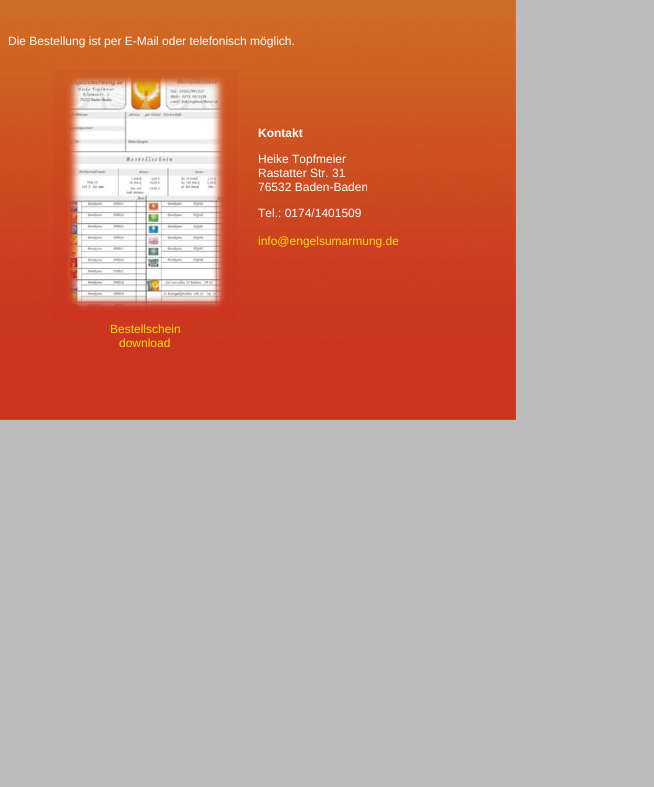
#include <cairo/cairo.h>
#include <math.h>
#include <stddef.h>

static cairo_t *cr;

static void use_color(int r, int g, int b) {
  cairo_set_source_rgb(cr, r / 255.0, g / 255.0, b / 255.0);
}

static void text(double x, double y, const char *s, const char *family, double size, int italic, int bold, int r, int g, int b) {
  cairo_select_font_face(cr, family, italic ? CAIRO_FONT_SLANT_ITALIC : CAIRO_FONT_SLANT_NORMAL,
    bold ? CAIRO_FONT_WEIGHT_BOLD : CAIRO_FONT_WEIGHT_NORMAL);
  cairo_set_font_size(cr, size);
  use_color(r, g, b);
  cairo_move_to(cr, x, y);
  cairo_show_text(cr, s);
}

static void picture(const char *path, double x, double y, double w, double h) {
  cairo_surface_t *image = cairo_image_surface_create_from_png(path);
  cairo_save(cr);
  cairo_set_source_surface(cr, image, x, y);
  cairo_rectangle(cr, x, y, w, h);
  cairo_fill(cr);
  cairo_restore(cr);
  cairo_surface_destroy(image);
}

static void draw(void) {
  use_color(187, 187, 187);
  cairo_paint(cr);
  picture("img_01.png", 0, 0, 516, 420);
  picture("img_02.png", 53, 70, 185, 250);
  text(8, 45, "Die Bestellung ist per E-Mail oder telefonisch möglich.", "Liberation Sans", 12, 0, 0, 255, 255, 255);
  text(258, 137, "Kontakt", "Liberation Sans", 12, 0, 1, 255, 255, 255);
  text(258, 163, "Heike Topfmeier", "Liberation Sans", 12, 0, 0, 255, 255, 255);
  text(258, 177, "Rastatter Str. 31", "Liberation Sans", 12, 0, 0, 255, 255, 255);
  text(258, 191, "76532 Baden-Baden", "Liberation Sans", 12, 0, 0, 255, 255, 255);
  text(258, 217, "Tel.: 0174/1401509", "Liberation Sans", 12, 0, 0, 255, 255, 255);
  text(258, 245, "info@engelsumarmung.de", "Liberation Sans", 12, 0, 0, 255, 222, 0);
  text(110, 333, "Bestellschein", "Liberation Sans", 12, 0, 0, 255, 222, 0);
  text(119, 347, "download", "Liberation Sans", 12, 0, 0, 255, 222, 0);
}

int main(void) {
  cairo_surface_t *surface = cairo_image_surface_create(CAIRO_FORMAT_RGB24, 654, 787);
  cr = cairo_create(surface);
  cairo_font_options_t *options = cairo_font_options_create();
  cairo_font_options_set_hint_metrics(options, CAIRO_HINT_METRICS_OFF);
  cairo_font_options_set_hint_style(options, CAIRO_HINT_STYLE_NONE);
  cairo_set_font_options(cr, options);
  cairo_set_miter_limit(cr, 4);
  draw();
  cairo_surface_write_to_png(surface, "out.png");
  cairo_font_options_destroy(options);
  cairo_destroy(cr);
  cairo_surface_destroy(surface);
  return 0;
}
